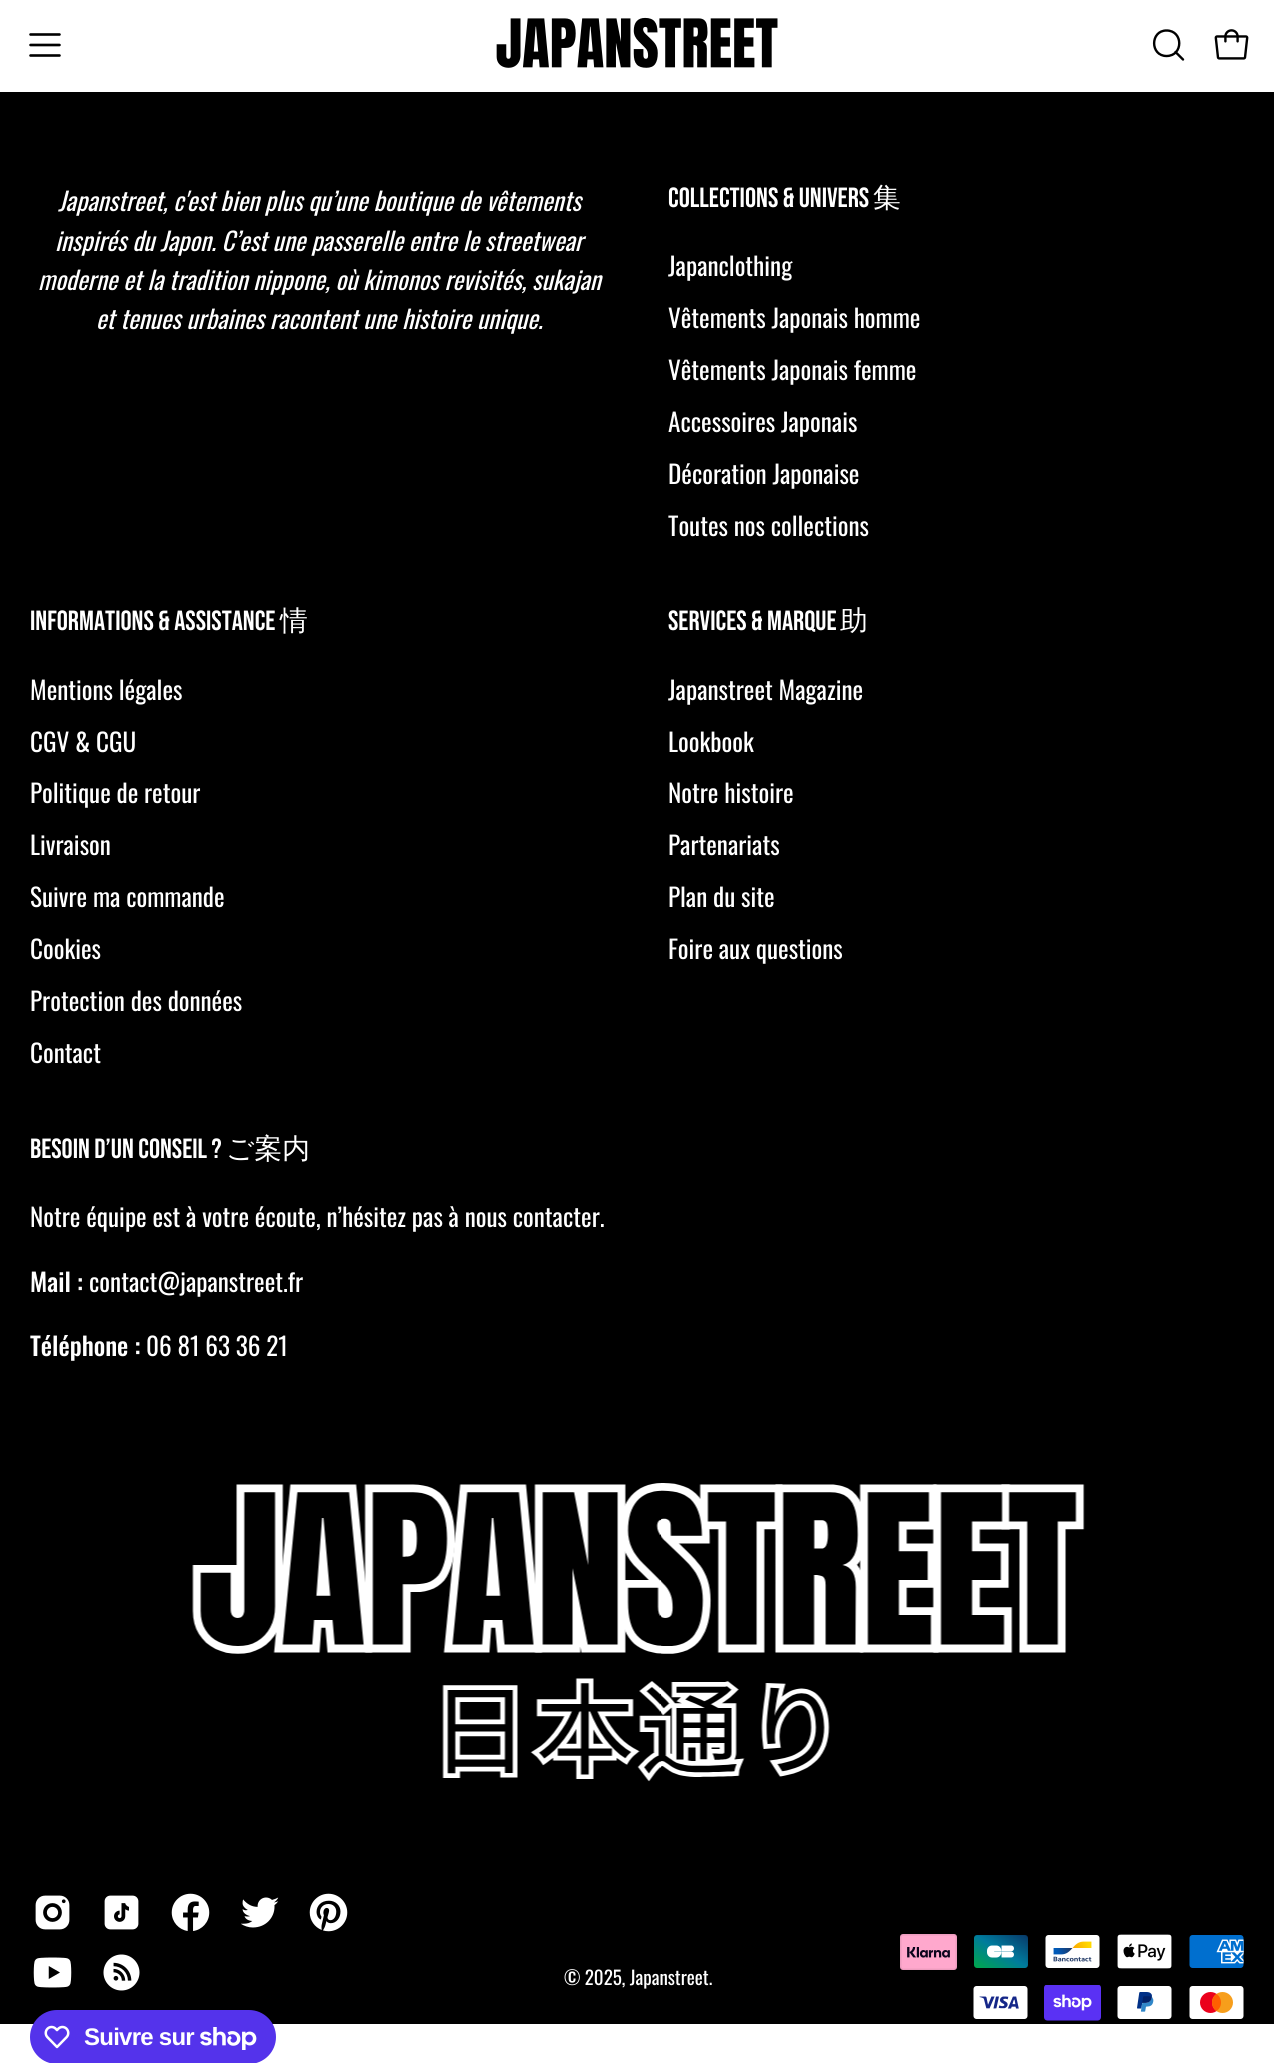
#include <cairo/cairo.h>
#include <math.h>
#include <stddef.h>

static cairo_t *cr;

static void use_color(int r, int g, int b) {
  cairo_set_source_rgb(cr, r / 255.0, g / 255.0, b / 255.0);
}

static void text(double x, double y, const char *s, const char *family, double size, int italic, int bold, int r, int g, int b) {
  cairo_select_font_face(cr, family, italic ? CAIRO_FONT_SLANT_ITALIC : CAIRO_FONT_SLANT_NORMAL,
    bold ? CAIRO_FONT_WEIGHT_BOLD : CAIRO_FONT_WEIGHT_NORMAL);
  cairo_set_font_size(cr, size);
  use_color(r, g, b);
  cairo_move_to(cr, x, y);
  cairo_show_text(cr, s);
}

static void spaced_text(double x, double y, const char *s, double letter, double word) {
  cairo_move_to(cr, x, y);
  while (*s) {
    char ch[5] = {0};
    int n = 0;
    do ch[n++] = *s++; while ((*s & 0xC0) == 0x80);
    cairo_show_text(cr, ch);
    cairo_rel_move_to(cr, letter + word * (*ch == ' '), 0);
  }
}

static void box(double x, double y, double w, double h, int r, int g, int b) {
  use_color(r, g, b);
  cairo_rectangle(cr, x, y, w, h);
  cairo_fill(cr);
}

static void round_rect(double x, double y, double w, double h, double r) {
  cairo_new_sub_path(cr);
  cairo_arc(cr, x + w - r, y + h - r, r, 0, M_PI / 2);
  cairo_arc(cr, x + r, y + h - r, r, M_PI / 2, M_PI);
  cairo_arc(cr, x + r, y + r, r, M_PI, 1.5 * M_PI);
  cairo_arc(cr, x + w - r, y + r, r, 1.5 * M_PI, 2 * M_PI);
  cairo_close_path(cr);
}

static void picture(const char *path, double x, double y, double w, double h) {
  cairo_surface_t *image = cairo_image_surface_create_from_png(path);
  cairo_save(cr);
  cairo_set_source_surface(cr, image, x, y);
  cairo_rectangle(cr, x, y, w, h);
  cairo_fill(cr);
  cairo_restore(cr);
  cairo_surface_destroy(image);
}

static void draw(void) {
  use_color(255, 255, 255);
  cairo_paint(cr);
  cairo_new_path(cr);
  cairo_move_to(cr, 30.5, 45);
  cairo_line_to(cr, 59.5, 45);
  cairo_move_to(cr, 30.5, 34.5);
  cairo_line_to(cr, 59.5, 34.5);
  cairo_move_to(cr, 30.5, 55.5);
  cairo_line_to(cr, 59.5, 55.5);
  use_color(0, 0, 0);
  cairo_set_line_width(cr, 2.6);
  cairo_set_line_cap(cr, CAIRO_LINE_CAP_ROUND);
  cairo_set_line_join(cr, CAIRO_LINE_JOIN_ROUND);
  cairo_stroke(cr);
  picture("img_01.png", 496, 17, 282, 51);
  cairo_new_path(cr);
  cairo_move_to(cr, 1166.5, 56);
  cairo_curve_to(cr, 1183.5, 56, 1183.5, 30.5, 1166.5, 30.5);
  cairo_curve_to(cr, 1150, 30.5, 1150, 56, 1166.5, 56);
  cairo_close_path(cr);
  cairo_move_to(cr, 1175.5, 52);
  cairo_line_to(cr, 1183, 59.5);
  cairo_set_line_width(cr, 2.4);
  cairo_stroke(cr);
  picture("img_02.png", 1214, 29, 35, 31);
  box(0, 92, 1274, 1932, 0, 0, 0);
  picture("img_03.png", 192, 1483, 893, 299);
  picture("img_04.png", 900, 1934, 57, 36);
  picture("img_05.png", 974, 1935, 54, 33);
  picture("img_06.png", 1045, 1935, 55, 33);
  picture("img_07.png", 1117, 1934, 55, 35);
  picture("img_08.png", 1189, 1935, 55, 33);
  picture("img_09.png", 973, 1986, 55, 33);
  picture("img_10.png", 1044, 1985, 57, 36);
  picture("img_11.png", 1117, 1986, 55, 33);
  picture("img_12.png", 1189, 1986, 55, 33);
  picture("img_13.png", 35, 1895, 35, 35);
  picture("img_14.png", 104, 1895, 35, 35);
  picture("img_15.png", 171, 1893, 39, 38);
  picture("img_16.png", 241, 1897, 38, 31);
  picture("img_17.png", 309, 1893, 39, 39);
  picture("img_18.png", 33, 1957, 39, 31);
  picture("img_19.png", 103, 1954, 37, 37);
  use_color(84, 51, 235);
  round_rect(30, 2010, 246, 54, 27);
  cairo_fill(cr);
  picture("img_20.png", 44, 2025, 26, 24);
  picture("img_21.png", 200, 2027, 57, 23);
  text(58, 211, "Japanstreet, c'est bien plus qu’une boutique de vêtements", "Oswald", 25.2, 1, 0, 255, 255, 255);
  text(55, 251, "inspirés du Japon. C’est une passerelle entre le streetwear", "Oswald", 25.2, 1, 0, 255, 255, 255);
  text(38, 290, "moderne et la tradition nippone, où kimonos revisités, sukajan", "Oswald", 25.2, 1, 0, 255, 255, 255);
  text(96, 329, "et tenues urbaines racontent une histoire unique.", "Oswald", 25.2, 1, 0, 255, 255, 255);
  text(668, 207, "Collections & Univers", "Bebas Neue", 27.75, 0, 0, 255, 255, 255);
  text(873, 207, "集", "WenQuanYi Zen Hei Medium", 27.75, 0, 0, 255, 255, 255);
  cairo_save(cr);
  cairo_rectangle(cr, 668, 246, 577, 299);
  cairo_clip(cr);
  text(668, 276, "Japanclothing", "Oswald", 25.2, 0, 0, 255, 255, 255);
  cairo_restore(cr);
  text(668, 328, "Vêtements Japonais homme", "Oswald", 25.2, 0, 0, 255, 255, 255);
  text(668, 380, "Vêtements Japonais femme", "Oswald", 25.2, 0, 0, 255, 255, 255);
  text(668, 432, "Accessoires Japonais", "Oswald", 25.2, 0, 0, 255, 255, 255);
  text(668, 484, "Décoration Japonaise", "Oswald", 25.2, 0, 0, 255, 255, 255);
  text(668, 536, "Toutes nos collections", "Oswald", 25.2, 0, 0, 255, 255, 255);
  text(30, 630, "Informations & Assistance", "Bebas Neue", 27.75, 0, 0, 255, 255, 255);
  text(280, 630, "情", "WenQuanYi Zen Hei Medium", 27.75, 0, 0, 255, 255, 255);
  text(30, 700, "Mentions légales", "Oswald", 25.2, 0, 0, 255, 255, 255);
  text(30, 752, "CGV & CGU", "Oswald", 25.2, 0, 0, 255, 255, 255);
  text(30, 803, "Politique de retour", "Oswald", 25.2, 0, 0, 255, 255, 255);
  text(30, 855, "Livraison", "Oswald", 25.2, 0, 0, 255, 255, 255);
  text(30, 907, "Suivre ma commande", "Oswald", 25.2, 0, 0, 255, 255, 255);
  text(30, 959, "Cookies", "Oswald", 25.2, 0, 0, 255, 255, 255);
  text(30, 1011, "Protection des données", "Oswald", 25.2, 0, 0, 255, 255, 255);
  text(30, 1063, "Contact", "Oswald", 25.2, 0, 0, 255, 255, 255);
  text(668, 630, "Services & Marque", "Bebas Neue", 27.75, 0, 0, 255, 255, 255);
  text(840, 630, "助", "WenQuanYi Zen Hei Medium", 27.75, 0, 0, 255, 255, 255);
  cairo_save(cr);
  cairo_rectangle(cr, 668, 669, 577, 300);
  cairo_clip(cr);
  text(668, 700, "Japanstreet Magazine", "Oswald", 25.2, 0, 0, 255, 255, 255);
  cairo_restore(cr);
  text(668, 752, "Lookbook", "Oswald", 25.2, 0, 0, 255, 255, 255);
  text(668, 803, "Notre histoire", "Oswald", 25.2, 0, 0, 255, 255, 255);
  text(668, 855, "Partenariats", "Oswald", 25.2, 0, 0, 255, 255, 255);
  text(668, 907, "Plan du site", "Oswald", 25.2, 0, 0, 255, 255, 255);
  text(668, 959, "Foire aux questions", "Oswald", 25.2, 0, 0, 255, 255, 255);
  text(30, 1158, "Besoin d’un conseil ?", "Bebas Neue", 27.75, 0, 0, 255, 255, 255);
  text(226, 1158, "ご案内", "WenQuanYi Zen Hei Medium", 27.75, 0, 0, 255, 255, 255);
  text(30, 1227, "Notre équipe est à votre écoute, n’hésitez pas à nous contacter.", "Oswald", 25.2, 0, 0, 255, 255, 255);
  text(30, 1292, "Mail :", "Oswald Medium", 25.2, 0, 0, 255, 255, 255);
  text(89, 1292, "contact@japanstreet.fr", "Oswald", 25.2, 0, 0, 255, 255, 255);
  text(30, 1356, "Téléphone :", "Oswald Medium", 25.2, 0, 0, 255, 255, 255);
  text(146, 1356, "06 81 63 36 21", "Oswald", 25.2, 0, 0, 255, 255, 255);
  text(564, 1985, "© 2025, Japanstreet.", "Oswald", 19, 0, 0, 255, 255, 255);
  cairo_select_font_face(cr, "Liberation Sans", CAIRO_FONT_SLANT_NORMAL, CAIRO_FONT_WEIGHT_BOLD);
  cairo_set_font_size(cr, 24);
  spaced_text(84, 2045, "Suivre sur", -0.75, 0);
}

int main(void) {
  cairo_surface_t *surface = cairo_image_surface_create(CAIRO_FORMAT_RGB24, 1274, 2063);
  cr = cairo_create(surface);
  cairo_font_options_t *options = cairo_font_options_create();
  cairo_font_options_set_hint_metrics(options, CAIRO_HINT_METRICS_OFF);
  cairo_font_options_set_hint_style(options, CAIRO_HINT_STYLE_NONE);
  cairo_set_font_options(cr, options);
  cairo_set_miter_limit(cr, 4);
  draw();
  cairo_surface_write_to_png(surface, "out.png");
  cairo_font_options_destroy(options);
  cairo_destroy(cr);
  cairo_surface_destroy(surface);
  return 0;
}
